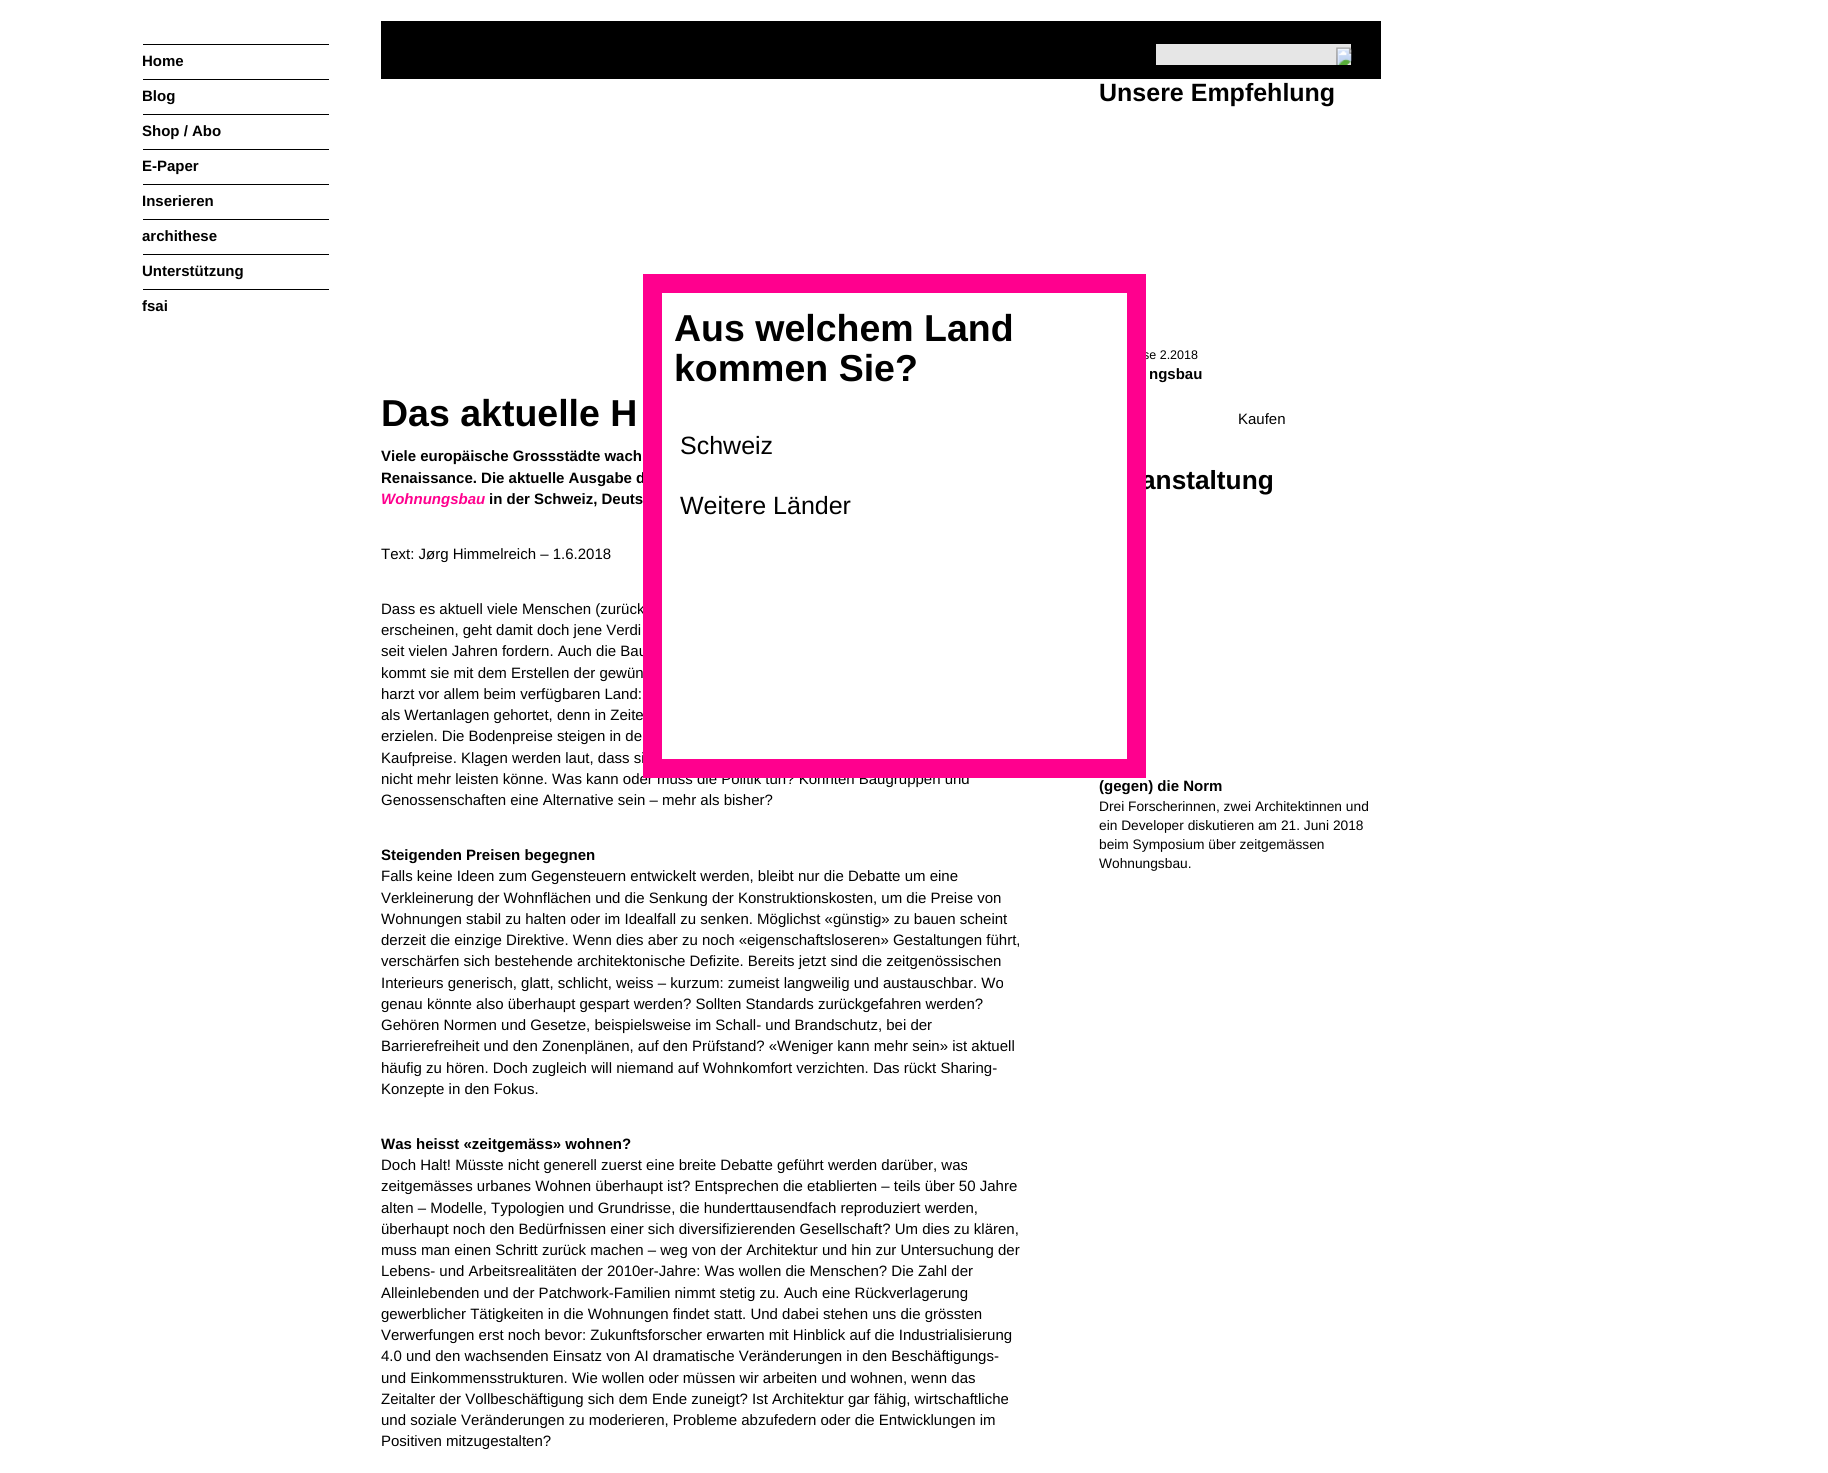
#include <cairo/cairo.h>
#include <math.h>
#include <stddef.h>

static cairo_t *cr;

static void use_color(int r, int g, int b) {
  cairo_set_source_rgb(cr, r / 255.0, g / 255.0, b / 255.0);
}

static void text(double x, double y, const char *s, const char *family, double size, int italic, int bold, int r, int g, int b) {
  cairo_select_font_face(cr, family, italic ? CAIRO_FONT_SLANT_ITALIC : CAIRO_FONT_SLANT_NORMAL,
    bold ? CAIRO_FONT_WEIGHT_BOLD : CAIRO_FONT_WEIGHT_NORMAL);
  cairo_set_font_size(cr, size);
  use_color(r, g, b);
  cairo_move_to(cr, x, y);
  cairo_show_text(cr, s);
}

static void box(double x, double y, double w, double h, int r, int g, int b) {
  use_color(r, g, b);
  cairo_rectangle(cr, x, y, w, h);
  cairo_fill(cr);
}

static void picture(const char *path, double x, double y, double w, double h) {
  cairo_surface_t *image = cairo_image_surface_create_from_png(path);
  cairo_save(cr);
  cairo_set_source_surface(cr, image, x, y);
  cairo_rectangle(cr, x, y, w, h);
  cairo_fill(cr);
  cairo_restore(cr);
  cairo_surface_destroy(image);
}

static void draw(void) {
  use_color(255, 255, 255);
  cairo_paint(cr);
  box(143, 44, 186, 1, 0, 0, 0);
  box(143, 79, 186, 1, 0, 0, 0);
  box(143, 114, 186, 1, 0, 0, 0);
  box(143, 149, 186, 1, 0, 0, 0);
  box(143, 184, 186, 1, 0, 0, 0);
  box(143, 219, 186, 1, 0, 0, 0);
  box(143, 254, 186, 1, 0, 0, 0);
  box(143, 289, 186, 1, 0, 0, 0);
  box(381, 21, 1000, 58, 0, 0, 0);
  box(1156, 44, 195, 21, 230, 230, 230);
  picture("img_01.png", 1336, 47, 16, 18);
  text(142, 66, "Home", "Liberation Sans", 15, 0, 1, 0, 0, 0);
  text(142, 101, "Blog", "Liberation Sans", 15, 0, 1, 0, 0, 0);
  text(142, 136, "Shop / Abo", "Liberation Sans", 15, 0, 1, 0, 0, 0);
  text(142, 171, "E-Paper", "Liberation Sans", 15, 0, 1, 0, 0, 0);
  text(142, 206, "Inserieren", "Liberation Sans", 15, 0, 1, 0, 0, 0);
  text(142, 241, "archithese", "Liberation Sans", 15, 0, 1, 0, 0, 0);
  text(142, 276, "Unterstützung", "Liberation Sans", 15, 0, 1, 0, 0, 0);
  text(142, 311, "fsai", "Liberation Sans", 15, 0, 1, 0, 0, 0);
  text(381, 426, "Das aktuelle H", "Liberation Sans", 37.5, 0, 1, 0, 0, 0);
  text(381, 461, "Viele europäische Grossstädte wach", "Liberation Sans", 15, 0, 1, 0, 0, 0);
  text(381, 483, "Renaissance. Die aktuelle Ausgabe d", "Liberation Sans", 15, 0, 1, 0, 0, 0);
  text(381, 504, "Wohnungsbau", "Liberation Sans", 15, 1, 1, 255, 0, 142);
  text(489, 504, "in der Schweiz, Deuts", "Liberation Sans", 15, 0, 1, 0, 0, 0);
  text(381, 559, "Text: Jørg Himmelreich – 1.6.2018", "Liberation Sans", 15, 0, 0, 0, 0, 0);
  text(381, 614, "Dass es aktuell viele Menschen (zurück", "Liberation Sans", 15, 0, 0, 0, 0, 0);
  text(381, 635, "erscheinen, geht damit doch jene Verdi", "Liberation Sans", 15, 0, 0, 0, 0, 0);
  text(381, 656, "seit vielen Jahren fordern. Auch die Bau", "Liberation Sans", 15, 0, 0, 0, 0, 0);
  text(381, 678, "kommt sie mit dem Erstellen der gewün", "Liberation Sans", 15, 0, 0, 0, 0, 0);
  text(381, 699, "harzt vor allem beim verfügbaren Land:", "Liberation Sans", 15, 0, 0, 0, 0, 0);
  text(381, 720, "als Wertanlagen gehortet, denn in Zeite", "Liberation Sans", 15, 0, 0, 0, 0, 0);
  text(381, 741, "erzielen. Die Bodenpreise steigen in de", "Liberation Sans", 15, 0, 0, 0, 0, 0);
  text(381, 763, "Kaufpreise. Klagen werden laut, dass si", "Liberation Sans", 15, 0, 0, 0, 0, 0);
  text(381, 784, "nicht mehr leisten könne. Was kann oder muss die Politik tun? Könnten Baugruppen und", "Liberation Sans", 15, 0, 0, 0, 0, 0);
  text(381, 805, "Genossenschaften eine Alternative sein – mehr als bisher?", "Liberation Sans", 15, 0, 0, 0, 0, 0);
  text(381, 860, "Steigenden Preisen begegnen", "Liberation Sans", 15, 0, 1, 0, 0, 0);
  text(381, 881, "Falls keine Ideen zum Gegensteuern entwickelt werden, bleibt nur die Debatte um eine", "Liberation Sans", 15, 0, 0, 0, 0, 0);
  text(381, 903, "Verkleinerung der Wohnflächen und die Senkung der Konstruktionskosten, um die Preise von", "Liberation Sans", 15, 0, 0, 0, 0, 0);
  text(381, 924, "Wohnungen stabil zu halten oder im Idealfall zu senken. Möglichst «günstig» zu bauen scheint", "Liberation Sans", 15, 0, 0, 0, 0, 0);
  text(381, 945, "derzeit die einzige Direktive. Wenn dies aber zu noch «eigenschaftsloseren» Gestaltungen führt,", "Liberation Sans", 15, 0, 0, 0, 0, 0);
  text(381, 966, "verschärfen sich bestehende architektonische Defizite. Bereits jetzt sind die zeitgenössischen", "Liberation Sans", 15, 0, 0, 0, 0, 0);
  text(381, 988, "Interieurs generisch, glatt, schlicht, weiss – kurzum: zumeist langweilig und austauschbar. Wo", "Liberation Sans", 15, 0, 0, 0, 0, 0);
  text(381, 1009, "genau könnte also überhaupt gespart werden? Sollten Standards zurückgefahren werden?", "Liberation Sans", 15, 0, 0, 0, 0, 0);
  text(381, 1030, "Gehören Normen und Gesetze, beispielsweise im Schall- und Brandschutz, bei der", "Liberation Sans", 15, 0, 0, 0, 0, 0);
  text(381, 1051, "Barrierefreiheit und den Zonenplänen, auf den Prüfstand? «Weniger kann mehr sein» ist aktuell", "Liberation Sans", 15, 0, 0, 0, 0, 0);
  text(381, 1073, "häufig zu hören. Doch zugleich will niemand auf Wohnkomfort verzichten. Das rückt Sharing-", "Liberation Sans", 15, 0, 0, 0, 0, 0);
  text(381, 1094, "Konzepte in den Fokus.", "Liberation Sans", 15, 0, 0, 0, 0, 0);
  text(381, 1149, "Was heisst «zeitgemäss» wohnen?", "Liberation Sans", 15, 0, 1, 0, 0, 0);
  text(381, 1170, "Doch Halt! Müsste nicht generell zuerst eine breite Debatte geführt werden darüber, was", "Liberation Sans", 15, 0, 0, 0, 0, 0);
  text(381, 1191, "zeitgemässes urbanes Wohnen überhaupt ist? Entsprechen die etablierten – teils über 50 Jahre", "Liberation Sans", 15, 0, 0, 0, 0, 0);
  text(381, 1213, "alten – Modelle, Typologien und Grundrisse, die hunderttausendfach reproduziert werden,", "Liberation Sans", 15, 0, 0, 0, 0, 0);
  text(381, 1234, "überhaupt noch den Bedürfnissen einer sich diversifizierenden Gesellschaft? Um dies zu klären,", "Liberation Sans", 15, 0, 0, 0, 0, 0);
  text(381, 1255, "muss man einen Schritt zurück machen – weg von der Architektur und hin zur Untersuchung der", "Liberation Sans", 15, 0, 0, 0, 0, 0);
  text(381, 1276, "Lebens- und Arbeitsrealitäten der 2010er-Jahre: Was wollen die Menschen? Die Zahl der", "Liberation Sans", 15, 0, 0, 0, 0, 0);
  text(381, 1298, "Alleinlebenden und der Patchwork-Familien nimmt stetig zu. Auch eine Rückverlagerung", "Liberation Sans", 15, 0, 0, 0, 0, 0);
  text(381, 1319, "gewerblicher Tätigkeiten in die Wohnungen findet statt. Und dabei stehen uns die grössten", "Liberation Sans", 15, 0, 0, 0, 0, 0);
  text(381, 1340, "Verwerfungen erst noch bevor: Zukunftsforscher erwarten mit Hinblick auf die Industrialisierung", "Liberation Sans", 15, 0, 0, 0, 0, 0);
  text(381, 1361, "4.0 und den wachsenden Einsatz von AI dramatische Veränderungen in den Beschäftigungs-", "Liberation Sans", 15, 0, 0, 0, 0, 0);
  text(381, 1383, "und Einkommensstrukturen. Wie wollen oder müssen wir arbeiten und wohnen, wenn das", "Liberation Sans", 15, 0, 0, 0, 0, 0);
  text(381, 1404, "Zeitalter der Vollbeschäftigung sich dem Ende zuneigt? Ist Architektur gar fähig, wirtschaftliche", "Liberation Sans", 15, 0, 0, 0, 0, 0);
  text(381, 1425, "und soziale Veränderungen zu moderieren, Probleme abzufedern oder die Entwicklungen im", "Liberation Sans", 15, 0, 0, 0, 0, 0);
  text(381, 1446, "Positiven mitzugestalten?", "Liberation Sans", 15, 0, 0, 0, 0, 0);
  text(1099, 101, "Unsere Empfehlung", "Liberation Sans", 25, 0, 1, 0, 0, 0);
  text(1143, 359, "se 2.2018", "Liberation Sans", 12.5, 0, 0, 0, 0, 0);
  text(1149, 379, "ngsbau", "Liberation Sans", 15, 0, 1, 0, 0, 0);
  text(1238, 424, "Kaufen", "Liberation Sans", 15, 0, 0, 0, 0, 0);
  text(1141, 489, "anstaltung", "Liberation Sans", 26.25, 0, 1, 0, 0, 0);
  text(1099, 791, "(gegen) die Norm", "Liberation Sans", 15, 0, 1, 0, 0, 0);
  text(1099, 811, "Drei Forscherinnen, zwei Architektinnen und", "Liberation Sans", 13.75, 0, 0, 0, 0, 0);
  text(1099, 830, "ein Developer diskutieren am 21. Juni 2018", "Liberation Sans", 13.75, 0, 0, 0, 0, 0);
  text(1099, 849, "beim Symposium über zeitgemässen", "Liberation Sans", 13.75, 0, 0, 0, 0, 0);
  text(1099, 868, "Wohnungsbau.", "Liberation Sans", 13.75, 0, 0, 0, 0, 0);
  cairo_rectangle(cr, 652.5, 283.5, 484, 485);
  use_color(255, 0, 142);
  cairo_set_line_width(cr, 19);
  cairo_stroke(cr);
  text(674, 341, "Aus welchem Land", "Liberation Sans", 37.5, 0, 1, 0, 0, 0);
  text(674, 381, "kommen Sie?", "Liberation Sans", 37.5, 0, 1, 0, 0, 0);
  text(680, 454, "Schweiz", "Liberation Sans", 25, 0, 0, 0, 0, 0);
  text(680, 514, "Weitere Länder", "Liberation Sans", 25, 0, 0, 0, 0, 0);
}

int main(void) {
  cairo_surface_t *surface = cairo_image_surface_create(CAIRO_FORMAT_RGB24, 1828, 1473);
  cr = cairo_create(surface);
  cairo_font_options_t *options = cairo_font_options_create();
  cairo_font_options_set_hint_metrics(options, CAIRO_HINT_METRICS_OFF);
  cairo_font_options_set_hint_style(options, CAIRO_HINT_STYLE_NONE);
  cairo_set_font_options(cr, options);
  cairo_set_miter_limit(cr, 4);
  draw();
  cairo_surface_write_to_png(surface, "out.png");
  cairo_font_options_destroy(options);
  cairo_destroy(cr);
  cairo_surface_destroy(surface);
  return 0;
}
